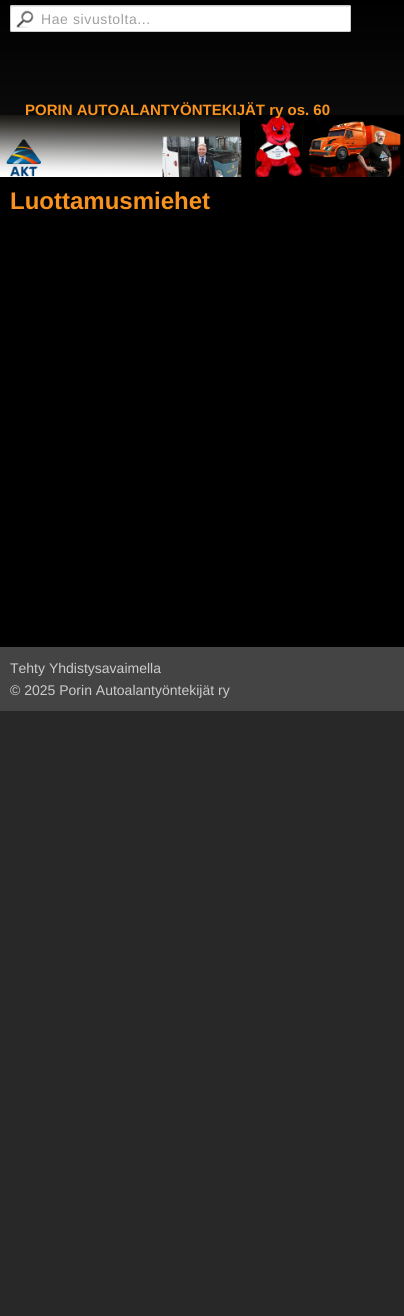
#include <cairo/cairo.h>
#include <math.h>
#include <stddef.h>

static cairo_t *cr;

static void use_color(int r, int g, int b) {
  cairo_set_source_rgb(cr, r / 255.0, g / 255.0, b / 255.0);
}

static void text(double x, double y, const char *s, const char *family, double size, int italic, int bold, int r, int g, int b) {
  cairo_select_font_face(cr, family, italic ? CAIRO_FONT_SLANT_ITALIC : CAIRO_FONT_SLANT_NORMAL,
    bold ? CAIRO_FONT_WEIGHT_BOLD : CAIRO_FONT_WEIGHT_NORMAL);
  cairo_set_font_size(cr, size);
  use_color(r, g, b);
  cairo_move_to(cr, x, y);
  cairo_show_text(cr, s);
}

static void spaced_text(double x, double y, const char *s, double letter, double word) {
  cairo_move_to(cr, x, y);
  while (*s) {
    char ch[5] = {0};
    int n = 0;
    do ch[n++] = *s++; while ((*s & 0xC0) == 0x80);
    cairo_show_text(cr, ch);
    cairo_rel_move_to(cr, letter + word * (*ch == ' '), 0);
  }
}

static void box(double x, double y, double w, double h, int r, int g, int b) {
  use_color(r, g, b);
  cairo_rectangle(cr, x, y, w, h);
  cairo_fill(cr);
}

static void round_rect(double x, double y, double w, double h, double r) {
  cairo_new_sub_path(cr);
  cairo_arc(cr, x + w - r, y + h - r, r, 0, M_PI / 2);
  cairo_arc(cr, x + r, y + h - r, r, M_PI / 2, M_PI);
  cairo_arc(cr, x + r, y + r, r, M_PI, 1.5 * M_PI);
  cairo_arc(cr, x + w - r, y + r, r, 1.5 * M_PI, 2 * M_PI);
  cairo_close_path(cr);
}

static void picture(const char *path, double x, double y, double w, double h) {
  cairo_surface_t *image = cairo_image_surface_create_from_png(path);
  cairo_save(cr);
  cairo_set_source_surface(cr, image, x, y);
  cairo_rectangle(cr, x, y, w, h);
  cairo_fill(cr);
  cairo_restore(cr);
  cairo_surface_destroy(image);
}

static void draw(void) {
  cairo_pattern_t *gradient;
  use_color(255, 255, 255);
  cairo_paint(cr);
  gradient = cairo_pattern_create_linear(202, 0, 202, 1316);
  cairo_pattern_add_color_stop_rgba(gradient, 0, 0, 0, 0, 1);
  cairo_pattern_add_color_stop_rgba(gradient, 0.34, 0.157, 0.157, 0.157, 1);
  cairo_pattern_add_color_stop_rgba(gradient, 1, 0.157, 0.157, 0.157, 1);
  cairo_set_source(cr, gradient);
  cairo_pattern_destroy(gradient);
  cairo_rectangle(cr, 0, 0, 404, 1316);
  cairo_fill(cr);
  use_color(255, 255, 255);
  round_rect(10, 5, 341, 27, 2);
  cairo_fill(cr);
  picture("img_01.png", 16, 10, 18, 18);
  use_color(230, 230, 230);
  cairo_set_fill_rule(cr, CAIRO_FILL_RULE_EVEN_ODD);
  cairo_new_path(cr);
  cairo_move_to(cr, 12, 7);
  cairo_line_to(cr, 350, 7);
  cairo_line_to(cr, 349, 6);
  cairo_line_to(cr, 12, 6);
  cairo_curve_to(cr, 10, 6, 11, 9, 11, 10);
  cairo_close_path(cr);
  cairo_move_to(cr, 350, 30);
  cairo_line_to(cr, 350, 30);
  cairo_close_path(cr);
  cairo_fill(cr);
  round_rect(10.5, 5.5, 340, 26, 1.5);
  use_color(204, 204, 204);
  cairo_set_line_width(cr, 1);
  cairo_stroke(cr);
  picture("img_02.png", 0, 115, 404, 62);
  box(0, 177, 404, 470, 0, 0, 0);
  box(0, 647, 404, 64, 68, 68, 68);
  cairo_select_font_face(cr, "Liberation Sans", CAIRO_FONT_SLANT_NORMAL, CAIRO_FONT_WEIGHT_NORMAL);
  cairo_set_font_size(cr, 14);
  use_color(159, 159, 159);
  spaced_text(41, 24, "Hae sivustolta...", 0.6, 0);
  text(25, 115, "PORIN AUTOALANTYÖNTEKIJÄT ry os. 60", "Liberation Sans", 15, 0, 1, 247, 147, 30);
  text(10, 209, "Luottamusmiehet", "Liberation Sans", 24, 0, 1, 247, 147, 30);
  text(10, 673, "Tehty Yhdistysavaimella", "Liberation Sans", 14, 0, 0, 204, 204, 204);
  text(10, 695, "© 2025 Porin Autoalantyöntekijät ry", "Liberation Sans", 14, 0, 0, 204, 204, 204);
}

int main(void) {
  cairo_surface_t *surface = cairo_image_surface_create(CAIRO_FORMAT_RGB24, 404, 1316);
  cr = cairo_create(surface);
  cairo_font_options_t *options = cairo_font_options_create();
  cairo_font_options_set_hint_metrics(options, CAIRO_HINT_METRICS_OFF);
  cairo_font_options_set_hint_style(options, CAIRO_HINT_STYLE_NONE);
  cairo_set_font_options(cr, options);
  cairo_set_miter_limit(cr, 4);
  draw();
  cairo_surface_write_to_png(surface, "out.png");
  cairo_font_options_destroy(options);
  cairo_destroy(cr);
  cairo_surface_destroy(surface);
  return 0;
}
